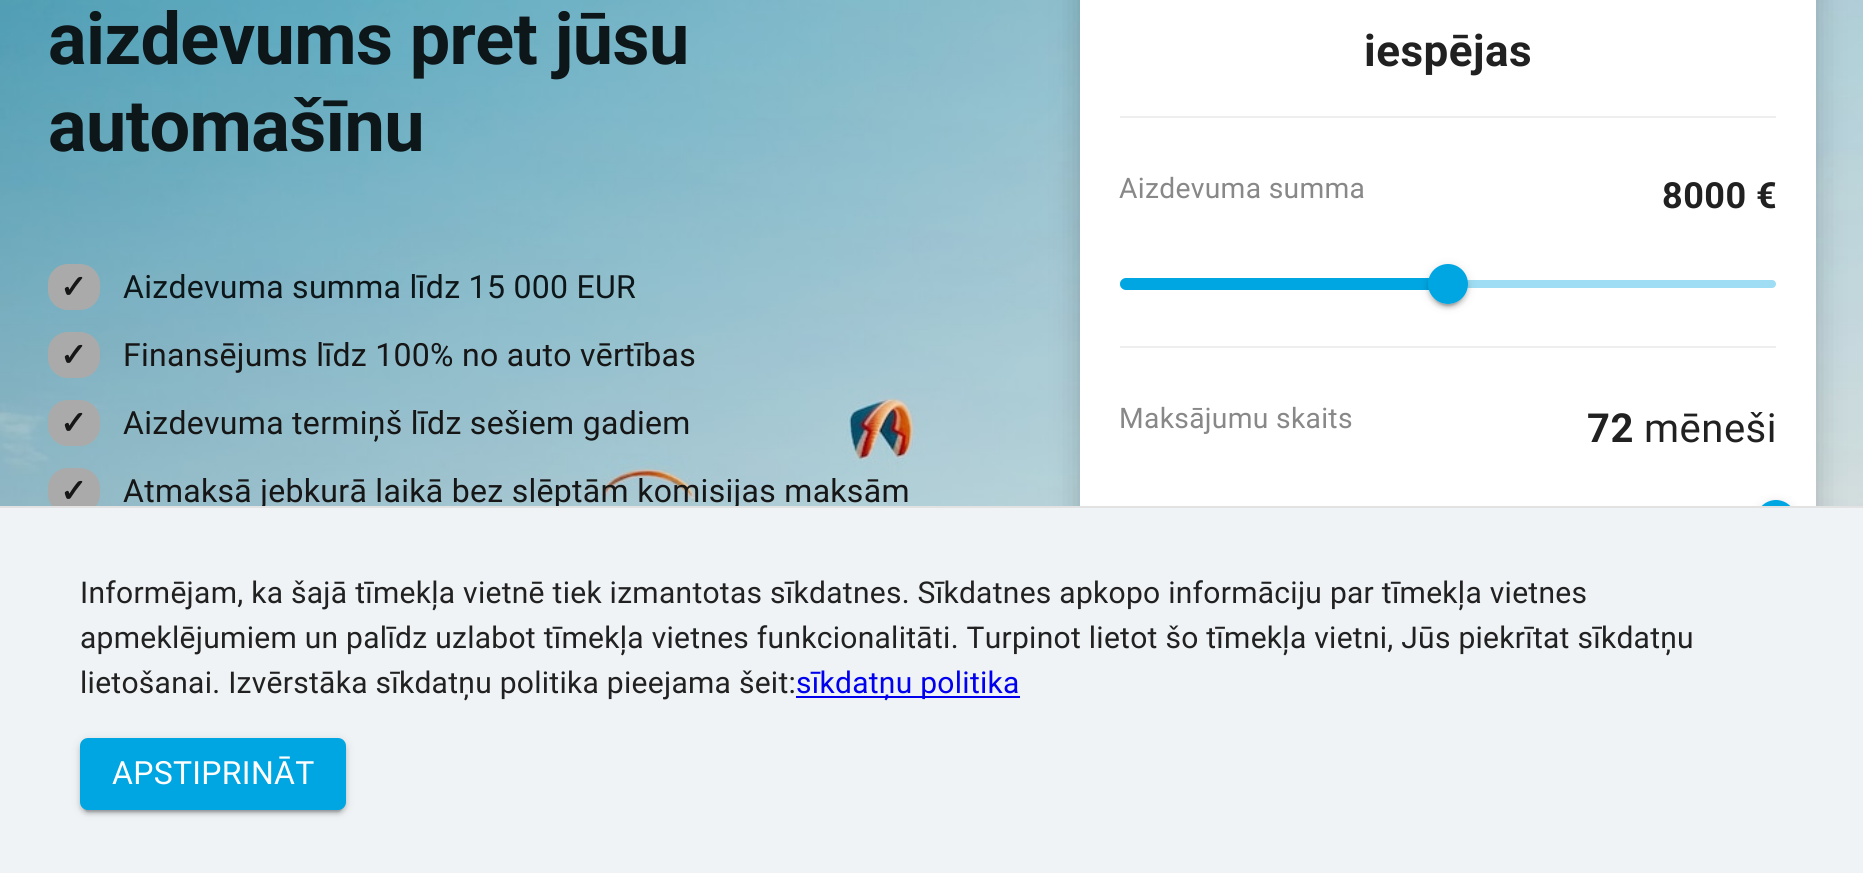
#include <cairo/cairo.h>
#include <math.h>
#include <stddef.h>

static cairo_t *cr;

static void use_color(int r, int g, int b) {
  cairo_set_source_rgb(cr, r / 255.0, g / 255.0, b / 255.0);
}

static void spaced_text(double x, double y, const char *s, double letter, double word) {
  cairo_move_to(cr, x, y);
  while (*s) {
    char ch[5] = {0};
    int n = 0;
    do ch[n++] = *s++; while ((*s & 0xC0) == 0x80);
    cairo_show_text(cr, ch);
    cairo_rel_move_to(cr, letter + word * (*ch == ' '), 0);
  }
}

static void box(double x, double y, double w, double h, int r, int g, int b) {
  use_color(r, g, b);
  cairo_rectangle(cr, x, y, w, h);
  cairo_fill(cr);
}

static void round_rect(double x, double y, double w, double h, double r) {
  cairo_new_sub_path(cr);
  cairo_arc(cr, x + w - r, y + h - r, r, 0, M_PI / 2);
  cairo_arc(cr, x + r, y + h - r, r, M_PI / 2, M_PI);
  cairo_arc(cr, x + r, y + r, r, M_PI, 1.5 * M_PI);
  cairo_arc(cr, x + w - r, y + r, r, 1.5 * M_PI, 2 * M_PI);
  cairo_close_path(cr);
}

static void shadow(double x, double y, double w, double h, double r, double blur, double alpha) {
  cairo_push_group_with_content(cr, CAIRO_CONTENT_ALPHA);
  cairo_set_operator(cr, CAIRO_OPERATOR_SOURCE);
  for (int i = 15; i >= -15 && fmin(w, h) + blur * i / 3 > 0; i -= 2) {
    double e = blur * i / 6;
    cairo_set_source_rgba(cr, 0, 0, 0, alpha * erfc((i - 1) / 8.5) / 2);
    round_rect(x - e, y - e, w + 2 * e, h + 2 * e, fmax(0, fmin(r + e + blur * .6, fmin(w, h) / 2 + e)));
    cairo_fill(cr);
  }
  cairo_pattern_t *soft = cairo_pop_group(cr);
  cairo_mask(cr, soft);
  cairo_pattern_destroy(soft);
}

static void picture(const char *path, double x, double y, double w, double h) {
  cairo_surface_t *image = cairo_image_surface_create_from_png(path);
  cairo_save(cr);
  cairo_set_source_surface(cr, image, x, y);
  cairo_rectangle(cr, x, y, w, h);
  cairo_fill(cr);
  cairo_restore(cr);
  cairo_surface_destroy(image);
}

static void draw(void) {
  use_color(255, 255, 255);
  cairo_paint(cr);
  picture("img_01.png", 0, 0, 1863, 506);
  use_color(170, 170, 170);
  round_rect(48, 264, 52, 46, 20);
  cairo_fill(cr);
  round_rect(48, 332, 52, 46, 20);
  cairo_fill(cr);
  round_rect(48, 400, 52, 46, 20);
  cairo_fill(cr);
  round_rect(48, 468, 52, 46, 20);
  cairo_fill(cr);
  use_color(0, 0, 0);
  shadow(1080, -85, 736, 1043, 40, 15, 0.2);
  box(1080, 0, 736, 506, 255, 255, 255);
  box(1120, 116, 656, 2, 238, 238, 238);
  use_color(158, 221, 244);
  round_rect(1120, 280, 656, 8, 4);
  cairo_fill(cr);
  use_color(0, 166, 226);
  round_rect(1121, 279, 330, 10, 5);
  cairo_fill_preserve(cr);
  cairo_stroke(cr);
  cairo_arc(cr, 1448, 284, 20, 0, 2 * M_PI);
  cairo_fill(cr);
  cairo_save(cr);
  cairo_set_fill_rule(cr, CAIRO_FILL_RULE_EVEN_ODD);
  cairo_new_path(cr);
  cairo_move_to(cr, 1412, 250);
  cairo_line_to(cr, 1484, 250);
  cairo_line_to(cr, 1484, 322);
  cairo_line_to(cr, 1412, 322);
  cairo_close_path(cr);
  cairo_move_to(cr, 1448, 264);
  cairo_curve_to(cr, 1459, 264, 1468, 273, 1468, 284);
  cairo_curve_to(cr, 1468, 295, 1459, 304, 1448, 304);
  cairo_curve_to(cr, 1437, 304, 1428, 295, 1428, 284);
  cairo_curve_to(cr, 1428, 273, 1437, 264, 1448, 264);
  cairo_close_path(cr);
  cairo_clip(cr);
  use_color(0, 0, 0);
  shadow(1428, 266, 40, 40, 20, 5, 0.12);
  cairo_restore(cr);
  cairo_save(cr);
  cairo_set_fill_rule(cr, CAIRO_FILL_RULE_EVEN_ODD);
  cairo_new_path(cr);
  cairo_move_to(cr, 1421, 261);
  cairo_line_to(cr, 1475, 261);
  cairo_line_to(cr, 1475, 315);
  cairo_line_to(cr, 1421, 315);
  cairo_close_path(cr);
  cairo_move_to(cr, 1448, 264);
  cairo_curve_to(cr, 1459, 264, 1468, 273, 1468, 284);
  cairo_curve_to(cr, 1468, 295, 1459, 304, 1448, 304);
  cairo_curve_to(cr, 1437, 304, 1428, 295, 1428, 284);
  cairo_curve_to(cr, 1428, 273, 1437, 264, 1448, 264);
  cairo_close_path(cr);
  cairo_clip(cr);
  use_color(0, 0, 0);
  shadow(1428, 268, 40, 40, 20, 2, 0.14);
  cairo_restore(cr);
  cairo_save(cr);
  cairo_set_fill_rule(cr, CAIRO_FILL_RULE_EVEN_ODD);
  cairo_new_path(cr);
  cairo_move_to(cr, 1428, 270);
  cairo_line_to(cr, 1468, 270);
  cairo_line_to(cr, 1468, 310);
  cairo_line_to(cr, 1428, 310);
  cairo_close_path(cr);
  cairo_move_to(cr, 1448, 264);
  cairo_curve_to(cr, 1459, 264, 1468, 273, 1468, 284);
  cairo_curve_to(cr, 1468, 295, 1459, 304, 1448, 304);
  cairo_curve_to(cr, 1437, 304, 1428, 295, 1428, 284);
  cairo_curve_to(cr, 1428, 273, 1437, 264, 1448, 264);
  cairo_close_path(cr);
  cairo_clip(cr);
  use_color(0, 0, 0);
  shadow(1432, 274, 32, 32, 16, 1, 0.2);
  cairo_restore(cr);
  box(1120, 346, 656, 2, 238, 238, 238);
  use_color(0, 166, 226);
  cairo_arc(cr, 1776, 520, 20, 0, 2 * M_PI);
  cairo_fill(cr);
  cairo_save(cr);
  cairo_set_fill_rule(cr, CAIRO_FILL_RULE_EVEN_ODD);
  cairo_new_path(cr);
  cairo_move_to(cr, 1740, 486);
  cairo_line_to(cr, 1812, 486);
  cairo_line_to(cr, 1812, 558);
  cairo_line_to(cr, 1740, 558);
  cairo_close_path(cr);
  cairo_move_to(cr, 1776, 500);
  cairo_curve_to(cr, 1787, 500, 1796, 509, 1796, 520);
  cairo_curve_to(cr, 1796, 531, 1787, 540, 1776, 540);
  cairo_curve_to(cr, 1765, 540, 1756, 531, 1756, 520);
  cairo_curve_to(cr, 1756, 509, 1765, 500, 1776, 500);
  cairo_close_path(cr);
  cairo_clip(cr);
  use_color(0, 0, 0);
  shadow(1756, 502, 40, 40, 20, 5, 0.12);
  cairo_restore(cr);
  cairo_select_font_face(cr, "Roboto", CAIRO_FONT_SLANT_NORMAL, CAIRO_FONT_WEIGHT_BOLD);
  cairo_set_font_size(cr, 72);
  use_color(13, 22, 25);
  spaced_text(48, 64, "aizdevums pret jūsu", -0.6, 0);
  spaced_text(48, 151, "automašīnu", -0.6, 0);
  cairo_select_font_face(cr, "DejaVu Sans", CAIRO_FONT_SLANT_NORMAL, CAIRO_FONT_WEIGHT_BOLD);
  cairo_set_font_size(cr, 32);
  use_color(22, 22, 22);
  spaced_text(60, 298, "✓", 0.3, 0);
  cairo_select_font_face(cr, "Roboto", CAIRO_FONT_SLANT_NORMAL, CAIRO_FONT_WEIGHT_NORMAL);
  use_color(13, 22, 25);
  spaced_text(123, 298, "Aizdevuma summa līdz 15 000 EUR", 0.3, 0);
  cairo_select_font_face(cr, "DejaVu Sans", CAIRO_FONT_SLANT_NORMAL, CAIRO_FONT_WEIGHT_BOLD);
  use_color(22, 22, 22);
  spaced_text(60, 366, "✓", 0.3, 0);
  cairo_select_font_face(cr, "Roboto", CAIRO_FONT_SLANT_NORMAL, CAIRO_FONT_WEIGHT_NORMAL);
  spaced_text(123, 366, "Finansējums līdz 100% no auto vērtības", 0.3, 0);
  cairo_select_font_face(cr, "DejaVu Sans", CAIRO_FONT_SLANT_NORMAL, CAIRO_FONT_WEIGHT_BOLD);
  spaced_text(60, 434, "✓", 0.3, 0);
  cairo_select_font_face(cr, "Roboto", CAIRO_FONT_SLANT_NORMAL, CAIRO_FONT_WEIGHT_NORMAL);
  spaced_text(123, 434, "Aizdevuma termiņš līdz sešiem gadiem", 0.3, 0);
  cairo_select_font_face(cr, "DejaVu Sans", CAIRO_FONT_SLANT_NORMAL, CAIRO_FONT_WEIGHT_BOLD);
  spaced_text(60, 502, "✓", 0.3, 0);
  cairo_select_font_face(cr, "Roboto", CAIRO_FONT_SLANT_NORMAL, CAIRO_FONT_WEIGHT_NORMAL);
  spaced_text(123, 502, "Atmaksā jebkurā laikā bez slēptām komisijas maksām", 0.3, 0);
  cairo_select_font_face(cr, "Roboto", CAIRO_FONT_SLANT_NORMAL, CAIRO_FONT_WEIGHT_BOLD);
  cairo_set_font_size(cr, 44);
  use_color(33, 33, 33);
  spaced_text(1364, 66, "iespējas", 0.5, 0);
  cairo_select_font_face(cr, "Roboto", CAIRO_FONT_SLANT_NORMAL, CAIRO_FONT_WEIGHT_NORMAL);
  cairo_set_font_size(cr, 28.25);
  use_color(136, 136, 136);
  spaced_text(1119, 198, "Aizdevuma summa", 0.3, 0);
  cairo_select_font_face(cr, "Roboto", CAIRO_FONT_SLANT_NORMAL, CAIRO_FONT_WEIGHT_BOLD);
  cairo_set_font_size(cr, 36);
  use_color(33, 33, 33);
  spaced_text(1662, 208, "8000 €", 0.5, 0);
  cairo_select_font_face(cr, "Roboto", CAIRO_FONT_SLANT_NORMAL, CAIRO_FONT_WEIGHT_NORMAL);
  cairo_set_font_size(cr, 28.25);
  use_color(136, 136, 136);
  spaced_text(1119, 428, "Maksājumu skaits", 0.3, 0);
  cairo_select_font_face(cr, "Roboto", CAIRO_FONT_SLANT_NORMAL, CAIRO_FONT_WEIGHT_BOLD);
  cairo_set_font_size(cr, 40);
  use_color(33, 33, 33);
  spaced_text(1587, 442, "72", 0.5, 0);
  cairo_select_font_face(cr, "Roboto", CAIRO_FONT_SLANT_NORMAL, CAIRO_FONT_WEIGHT_NORMAL);
  spaced_text(1644, 442, "mēneši", 0.5, 0);
  box(0, 508, 1863, 365, 239, 243, 246);
  box(0, 506, 1863, 2, 226, 226, 226);
  cairo_set_font_size(cr, 30);
  use_color(33, 33, 33);
  spaced_text(80, 603, "Informējam, ka šajā tīmekļa vietnē tiek izmantotas sīkdatnes. Sīkdatnes apkopo informāciju par tīmekļa vietnes", 0.28, 0);
  spaced_text(80, 648, "apmeklējumiem un palīdz uzlabot tīmekļa vietnes funkcionalitāti. Turpinot lietot šo tīmekļa vietni, Jūs piekrītat sīkdatņu", 0.28, 0);
  spaced_text(80, 693, "lietošanai. Izvērstāka sīkdatņu politika pieejama šeit:", 0.28, 0);
  box(796, 696, 224, 2, 0, 0, 238);
  spaced_text(796, 693, "sīkdatņu politika", 0.28, 0);
  use_color(0, 0, 0);
  shadow(80, 740, 266, 72, 8, 5, 0.12);
  shadow(80, 742, 266, 72, 8, 2, 0.14);
  shadow(84, 748, 258, 64, 4, 1, 0.2);
  use_color(0, 166, 226);
  round_rect(80, 738, 266, 72, 8);
  cairo_fill(cr);
  cairo_set_font_size(cr, 32);
  use_color(255, 255, 255);
  spaced_text(112, 784, "APSTIPRINĀT", 0.3, 0);
}

int main(void) {
  cairo_surface_t *surface = cairo_image_surface_create(CAIRO_FORMAT_RGB24, 1863, 873);
  cr = cairo_create(surface);
  cairo_font_options_t *options = cairo_font_options_create();
  cairo_font_options_set_hint_metrics(options, CAIRO_HINT_METRICS_OFF);
  cairo_font_options_set_hint_style(options, CAIRO_HINT_STYLE_NONE);
  cairo_set_font_options(cr, options);
  cairo_set_miter_limit(cr, 4);
  draw();
  cairo_surface_write_to_png(surface, "out.png");
  cairo_font_options_destroy(options);
  cairo_destroy(cr);
  cairo_surface_destroy(surface);
  return 0;
}
